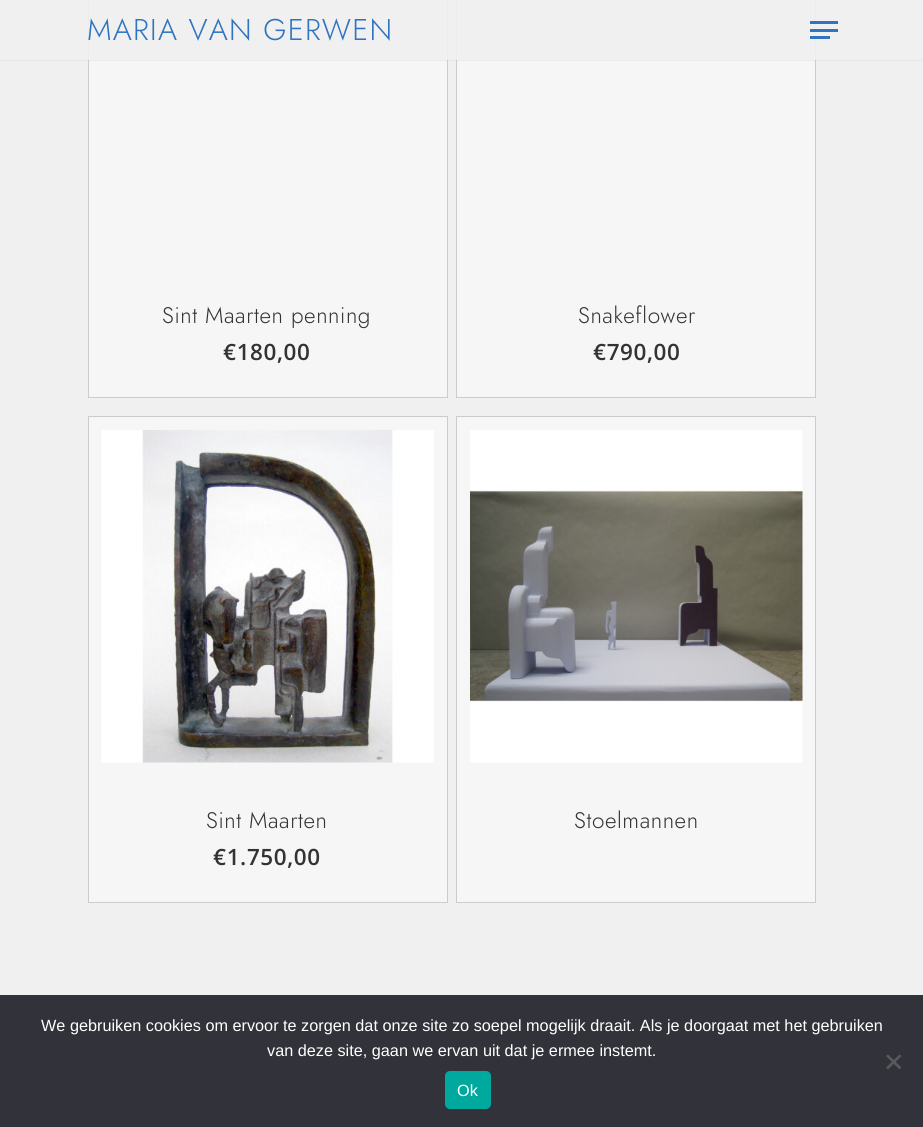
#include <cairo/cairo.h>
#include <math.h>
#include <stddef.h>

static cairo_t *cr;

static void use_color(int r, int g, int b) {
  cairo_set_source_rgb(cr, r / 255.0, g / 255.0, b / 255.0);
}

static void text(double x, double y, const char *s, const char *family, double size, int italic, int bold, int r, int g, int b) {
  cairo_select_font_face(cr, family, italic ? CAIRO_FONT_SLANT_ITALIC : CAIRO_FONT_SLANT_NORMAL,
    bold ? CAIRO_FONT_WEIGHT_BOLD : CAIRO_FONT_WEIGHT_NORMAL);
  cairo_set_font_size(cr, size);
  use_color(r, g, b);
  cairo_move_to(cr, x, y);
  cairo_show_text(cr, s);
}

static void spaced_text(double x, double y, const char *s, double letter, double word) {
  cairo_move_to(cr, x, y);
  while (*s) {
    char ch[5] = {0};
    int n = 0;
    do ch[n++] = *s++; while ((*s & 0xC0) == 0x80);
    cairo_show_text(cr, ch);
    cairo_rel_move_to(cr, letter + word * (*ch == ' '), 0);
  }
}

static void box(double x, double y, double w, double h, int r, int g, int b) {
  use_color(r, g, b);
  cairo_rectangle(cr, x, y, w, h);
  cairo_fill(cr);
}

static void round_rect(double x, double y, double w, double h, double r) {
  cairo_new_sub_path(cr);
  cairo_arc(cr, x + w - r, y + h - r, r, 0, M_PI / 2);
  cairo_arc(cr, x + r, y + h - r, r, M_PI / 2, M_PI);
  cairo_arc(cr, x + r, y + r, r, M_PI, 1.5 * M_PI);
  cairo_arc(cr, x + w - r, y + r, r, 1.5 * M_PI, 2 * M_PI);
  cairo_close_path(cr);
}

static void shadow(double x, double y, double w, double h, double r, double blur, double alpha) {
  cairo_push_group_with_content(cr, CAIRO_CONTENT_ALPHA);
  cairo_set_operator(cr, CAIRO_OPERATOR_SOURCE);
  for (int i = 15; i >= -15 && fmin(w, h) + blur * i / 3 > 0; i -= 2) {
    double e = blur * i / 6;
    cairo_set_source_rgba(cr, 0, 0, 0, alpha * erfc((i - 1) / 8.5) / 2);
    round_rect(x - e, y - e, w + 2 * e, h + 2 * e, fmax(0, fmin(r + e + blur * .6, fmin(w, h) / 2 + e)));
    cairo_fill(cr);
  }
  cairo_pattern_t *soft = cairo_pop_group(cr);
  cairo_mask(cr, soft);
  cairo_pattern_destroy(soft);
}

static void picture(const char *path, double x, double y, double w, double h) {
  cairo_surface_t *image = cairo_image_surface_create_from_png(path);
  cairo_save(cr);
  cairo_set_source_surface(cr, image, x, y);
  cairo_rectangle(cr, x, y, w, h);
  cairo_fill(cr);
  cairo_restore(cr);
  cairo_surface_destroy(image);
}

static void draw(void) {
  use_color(240, 240, 240);
  cairo_paint(cr);
  use_color(246, 246, 246);
  cairo_rectangle(cr, 88.5, -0.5, 359, 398);
  cairo_fill_preserve(cr);
  use_color(204, 204, 204);
  cairo_set_line_width(cr, 1);
  cairo_stroke(cr);
  use_color(246, 246, 246);
  cairo_rectangle(cr, 456.5, -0.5, 359, 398);
  cairo_fill_preserve(cr);
  use_color(204, 204, 204);
  cairo_stroke(cr);
  cairo_save(cr);
  cairo_rectangle(cr, 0, 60, 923, 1);
  cairo_clip(cr);
  use_color(0, 0, 0);
  shadow(0, 0, 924, 60, 0, 1, 0.14);
  cairo_restore(cr);
  cairo_set_source_rgba(cr, 0.941, 0.941, 0.941, 0.9);
  cairo_rectangle(cr, 88, 0, 728, 60);
  cairo_fill(cr);
  box(810, 21, 28, 3, 48, 116, 193);
  box(810, 36, 20, 3, 48, 116, 193);
  box(810, 29, 28, 3, 48, 116, 193);
  use_color(246, 246, 246);
  cairo_rectangle(cr, 88.5, 416.5, 359, 486);
  cairo_fill_preserve(cr);
  use_color(204, 204, 204);
  cairo_stroke(cr);
  picture("img_01.png", 101, 430, 333, 333);
  use_color(246, 246, 246);
  cairo_rectangle(cr, 456.5, 416.5, 359, 486);
  cairo_fill_preserve(cr);
  use_color(204, 204, 204);
  cairo_stroke(cr);
  picture("img_02.png", 470, 430, 333, 333);
  box(0, 995, 923, 132, 50, 50, 58);
  use_color(89, 89, 93);
  cairo_new_path(cr);
  cairo_move_to(cr, 899.5, 1054.5);
  cairo_line_to(cr, 901.5, 1056);
  cairo_line_to(cr, 888, 1069.5);
  cairo_line_to(cr, 886, 1067.5);
  cairo_close_path(cr);
  cairo_fill(cr);
  cairo_new_path(cr);
  cairo_move_to(cr, 886, 1056);
  cairo_line_to(cr, 888, 1054.5);
  cairo_line_to(cr, 901.5, 1067.5);
  cairo_line_to(cr, 899.5, 1069.5);
  cairo_close_path(cr);
  cairo_fill(cr);
  use_color(0, 169, 157);
  round_rect(445, 1071, 46, 38, 5);
  cairo_fill(cr);
  cairo_select_font_face(cr, "Jost Light", CAIRO_FONT_SLANT_NORMAL, CAIRO_FONT_WEIGHT_NORMAL);
  cairo_set_font_size(cr, 30);
  use_color(48, 116, 193);
  spaced_text(87, 40, "MARIA VAN GERWEN", 1.25, 0);
  cairo_set_font_size(cr, 22.5);
  use_color(51, 51, 51);
  spaced_text(162, 323, "Sint Maarten penning", 0.6, 0);
  cairo_select_font_face(cr, "Open Sans SemiBold", CAIRO_FONT_SLANT_NORMAL, CAIRO_FONT_WEIGHT_NORMAL);
  spaced_text(223, 360, "€180,00", 0.6, 0);
  cairo_select_font_face(cr, "Jost Light", CAIRO_FONT_SLANT_NORMAL, CAIRO_FONT_WEIGHT_NORMAL);
  spaced_text(578, 323, "Snakeflower", 0.6, 0);
  cairo_select_font_face(cr, "Open Sans SemiBold", CAIRO_FONT_SLANT_NORMAL, CAIRO_FONT_WEIGHT_NORMAL);
  spaced_text(593, 360, "€790,00", 0.6, 0);
  cairo_select_font_face(cr, "Jost Light", CAIRO_FONT_SLANT_NORMAL, CAIRO_FONT_WEIGHT_NORMAL);
  spaced_text(206, 828, "Sint Maarten", 0.6, 0);
  cairo_select_font_face(cr, "Open Sans SemiBold", CAIRO_FONT_SLANT_NORMAL, CAIRO_FONT_WEIGHT_NORMAL);
  spaced_text(213, 865, "€1.750,00", 0.6, 0);
  cairo_select_font_face(cr, "Jost Light", CAIRO_FONT_SLANT_NORMAL, CAIRO_FONT_WEIGHT_NORMAL);
  spaced_text(574, 828, "Stoelmannen", 0.6, 0);
  text(41, 1031, "We gebruiken cookies om ervoor te zorgen dat onze site zo soepel mogelijk draait. Als je doorgaat met het gebruiken", "Liberation Sans", 16.25, 0, 0, 255, 255, 255);
  text(267, 1056, "van deze site, gaan we ervan uit dat je ermee instemt.", "Liberation Sans", 16.25, 0, 0, 255, 255, 255);
  text(457, 1096, "Ok", "Liberation Sans", 16.25, 0, 0, 255, 255, 255);
}

int main(void) {
  cairo_surface_t *surface = cairo_image_surface_create(CAIRO_FORMAT_RGB24, 923, 1127);
  cr = cairo_create(surface);
  cairo_font_options_t *options = cairo_font_options_create();
  cairo_font_options_set_hint_metrics(options, CAIRO_HINT_METRICS_OFF);
  cairo_font_options_set_hint_style(options, CAIRO_HINT_STYLE_NONE);
  cairo_set_font_options(cr, options);
  cairo_set_miter_limit(cr, 4);
  draw();
  cairo_surface_write_to_png(surface, "out.png");
  cairo_font_options_destroy(options);
  cairo_destroy(cr);
  cairo_surface_destroy(surface);
  return 0;
}
